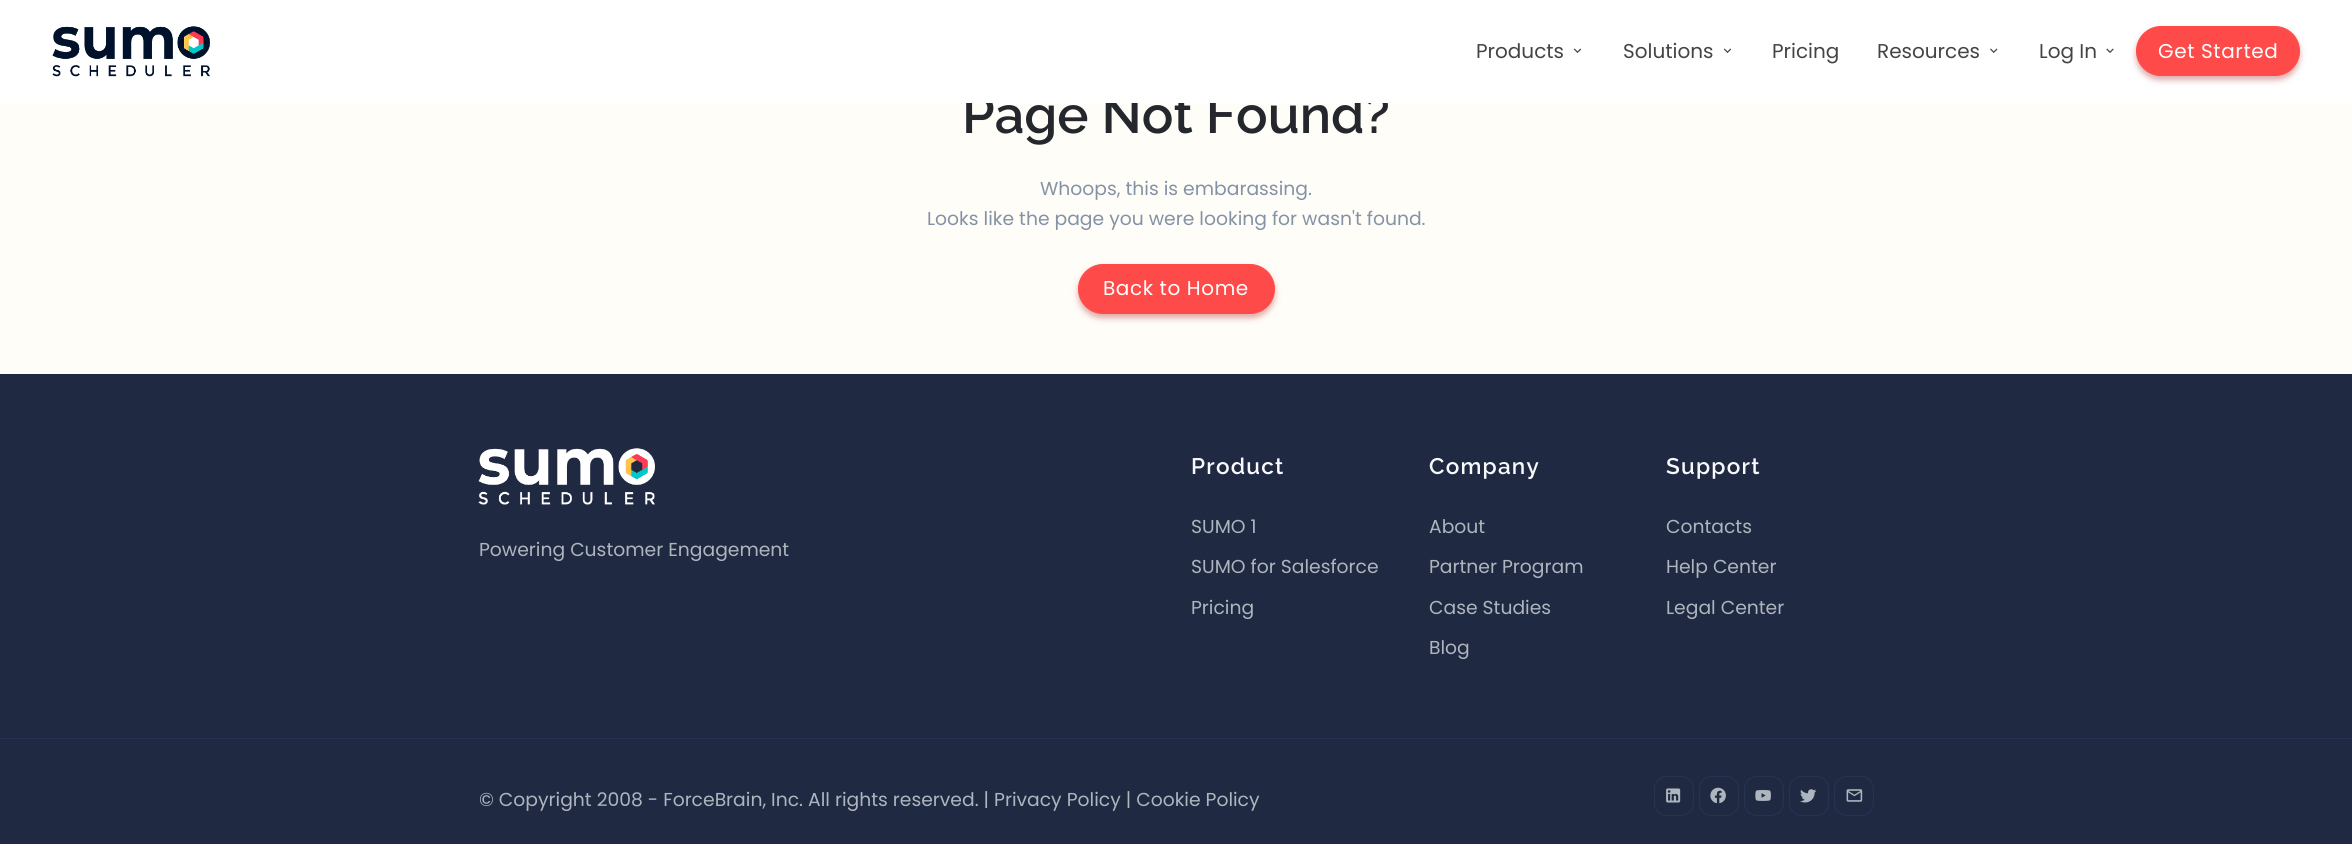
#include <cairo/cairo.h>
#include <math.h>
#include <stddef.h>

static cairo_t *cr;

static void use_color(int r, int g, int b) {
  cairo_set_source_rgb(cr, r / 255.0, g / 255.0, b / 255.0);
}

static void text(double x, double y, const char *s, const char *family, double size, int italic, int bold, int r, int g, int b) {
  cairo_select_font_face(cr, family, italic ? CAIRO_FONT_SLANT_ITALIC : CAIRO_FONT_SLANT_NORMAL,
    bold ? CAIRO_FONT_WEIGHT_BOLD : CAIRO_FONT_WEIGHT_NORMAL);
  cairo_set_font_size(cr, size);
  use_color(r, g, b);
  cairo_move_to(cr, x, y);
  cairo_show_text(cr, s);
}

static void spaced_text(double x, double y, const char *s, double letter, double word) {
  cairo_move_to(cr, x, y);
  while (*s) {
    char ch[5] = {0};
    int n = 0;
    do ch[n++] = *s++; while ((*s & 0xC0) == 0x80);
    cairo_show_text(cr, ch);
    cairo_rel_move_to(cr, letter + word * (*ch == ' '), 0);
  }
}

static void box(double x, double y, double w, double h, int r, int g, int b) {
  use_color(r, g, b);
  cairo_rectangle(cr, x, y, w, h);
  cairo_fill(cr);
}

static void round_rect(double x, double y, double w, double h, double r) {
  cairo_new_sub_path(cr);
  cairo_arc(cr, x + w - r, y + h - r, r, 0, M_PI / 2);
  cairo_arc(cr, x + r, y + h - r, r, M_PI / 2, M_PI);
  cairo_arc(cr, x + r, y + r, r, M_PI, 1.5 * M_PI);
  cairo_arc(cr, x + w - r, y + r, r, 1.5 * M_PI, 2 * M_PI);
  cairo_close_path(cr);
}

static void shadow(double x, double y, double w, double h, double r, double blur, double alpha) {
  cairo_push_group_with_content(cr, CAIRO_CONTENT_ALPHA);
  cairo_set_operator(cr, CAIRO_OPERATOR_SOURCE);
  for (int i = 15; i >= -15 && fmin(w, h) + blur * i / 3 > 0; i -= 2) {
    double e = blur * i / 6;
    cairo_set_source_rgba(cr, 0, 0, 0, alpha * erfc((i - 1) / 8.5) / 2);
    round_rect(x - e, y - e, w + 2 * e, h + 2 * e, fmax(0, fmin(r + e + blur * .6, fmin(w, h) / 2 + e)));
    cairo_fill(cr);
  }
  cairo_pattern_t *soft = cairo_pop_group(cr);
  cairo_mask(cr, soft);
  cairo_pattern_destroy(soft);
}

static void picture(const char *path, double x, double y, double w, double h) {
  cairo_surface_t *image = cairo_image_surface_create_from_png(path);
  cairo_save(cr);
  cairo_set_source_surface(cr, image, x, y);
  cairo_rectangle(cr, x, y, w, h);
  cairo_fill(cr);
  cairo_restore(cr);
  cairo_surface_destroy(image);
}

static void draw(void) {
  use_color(255, 253, 248);
  cairo_paint(cr);
  use_color(175, 42, 42);
  shadow(1078, 268, 197, 50, 25, 3, 0.4);
  use_color(254, 74, 73);
  round_rect(1078.5, 264.5, 196, 49, 24.5);
  cairo_fill_preserve(cr);
  cairo_set_line_width(cr, 1);
  cairo_stroke(cr);
  box(0, 374, 2352, 470, 32, 41, 66);
  picture("img_05.png", 478, 448, 177, 57);
  box(0, 738, 2352, 1, 40, 51, 83);
  round_rect(1654.5, 776.5, 39, 39, 12.5);
  cairo_stroke(cr);
  picture("img_06.png", 1666, 788, 15, 15);
  round_rect(1699.5, 776.5, 39, 39, 12.5);
  cairo_stroke(cr);
  picture("img_07.png", 1710, 787, 16, 17);
  round_rect(1744.5, 776.5, 39, 39, 12.5);
  cairo_stroke(cr);
  picture("img_08.png", 1755, 790, 16, 11);
  round_rect(1789.5, 776.5, 39, 39, 12.5);
  cairo_stroke(cr);
  picture("img_09.png", 1800, 789, 17, 14);
  round_rect(1834.5, 776.5, 39, 39, 12.5);
  cairo_stroke(cr);
  picture("img_10.png", 1846, 789, 17, 13);
  text(962, 133, "Page Not Found?", "Raleway SemiBold", 52.5, 0, 0, 36, 39, 44);
  box(0, 0, 2352, 103, 255, 255, 255);
  use_color(175, 42, 42);
  shadow(2136, 30, 164, 50, 25, 3, 0.4);
  use_color(254, 74, 73);
  round_rect(2136.5, 26.5, 163, 49, 24.5);
  cairo_fill_preserve(cr);
  cairo_stroke(cr);
  cairo_select_font_face(cr, "Poppins", CAIRO_FONT_SLANT_NORMAL, CAIRO_FONT_WEIGHT_NORMAL);
  cairo_set_font_size(cr, 20);
  use_color(255, 255, 255);
  spaced_text(2158, 58, "Get Started", 0.6, 0);
  picture("img_04.png", 2106, 48, 8, 5);
  text(2039, 58, "Log In", "Poppins", 20, 0, 0, 68, 68, 68);
  text(1772, 58, "Pricing", "Poppins", 20, 0, 0, 68, 68, 68);
  picture("img_02.png", 1573, 48, 9, 5);
  text(1476, 58, "Products", "Poppins", 20, 0, 0, 68, 68, 68);
  picture("img_03.png", 1990, 48, 8, 5);
  text(1877, 58, "Resources", "Poppins", 20, 0, 0, 68, 68, 68);
  picture("img_02.png", 1723, 48, 9, 5);
  text(1623, 58, "Solutions", "Poppins", 20, 0, 0, 68, 68, 68);
  picture("img_01.png", 52, 26, 158, 51);
  text(1040, 195, "Whoops, this is embarassing.", "Poppins", 18.75, 0, 0, 132, 146, 166);
  text(927, 225, "Looks like the page you were looking for wasn't found.", "Poppins", 18.75, 0, 0, 132, 146, 166);
  cairo_set_font_size(cr, 20);
  use_color(255, 255, 255);
  spaced_text(1103, 295, "Back to Home", 0.6, 0);
  text(479, 556, "Powering Customer Engagement", "Poppins", 18.75, 0, 0, 173, 181, 189);
  cairo_select_font_face(cr, "Raleway SemiBold", CAIRO_FONT_SLANT_NORMAL, CAIRO_FONT_WEIGHT_NORMAL);
  cairo_set_font_size(cr, 22.5);
  use_color(248, 249, 252);
  spaced_text(1191, 474, "Product", 1.25, 0);
  text(1191, 533, "SUMO 1", "Poppins", 18.75, 0, 0, 173, 181, 189);
  text(1191, 573, "SUMO for Salesforce", "Poppins", 18.75, 0, 0, 173, 181, 189);
  text(1191, 614, "Pricing", "Poppins", 18.75, 0, 0, 173, 181, 189);
  cairo_select_font_face(cr, "Raleway SemiBold", CAIRO_FONT_SLANT_NORMAL, CAIRO_FONT_WEIGHT_NORMAL);
  cairo_set_font_size(cr, 22.5);
  use_color(248, 249, 252);
  spaced_text(1429, 474, "Company", 1.25, 0);
  text(1429, 533, "About", "Poppins", 18.75, 0, 0, 173, 181, 189);
  text(1429, 573, "Partner Program", "Poppins", 18.75, 0, 0, 173, 181, 189);
  text(1429, 614, "Case Studies", "Poppins", 18.75, 0, 0, 173, 181, 189);
  text(1429, 654, "Blog", "Poppins", 18.75, 0, 0, 173, 181, 189);
  cairo_select_font_face(cr, "Raleway SemiBold", CAIRO_FONT_SLANT_NORMAL, CAIRO_FONT_WEIGHT_NORMAL);
  cairo_set_font_size(cr, 22.5);
  use_color(248, 249, 252);
  spaced_text(1666, 474, "Support", 1.25, 0);
  text(1666, 533, "Contacts", "Poppins", 18.75, 0, 0, 173, 181, 189);
  text(1666, 573, "Help Center", "Poppins", 18.75, 0, 0, 173, 181, 189);
  text(1666, 614, "Legal Center", "Poppins", 18.75, 0, 0, 173, 181, 189);
  text(479, 806, "© Copyright 2008 - ForceBrain, Inc. All rights reserved. | Privacy Policy | Cookie Policy", "Poppins", 18.75, 0, 0, 173, 181, 189);
}

int main(void) {
  cairo_surface_t *surface = cairo_image_surface_create(CAIRO_FORMAT_RGB24, 2352, 844);
  cr = cairo_create(surface);
  cairo_font_options_t *options = cairo_font_options_create();
  cairo_font_options_set_hint_metrics(options, CAIRO_HINT_METRICS_OFF);
  cairo_font_options_set_hint_style(options, CAIRO_HINT_STYLE_NONE);
  cairo_set_font_options(cr, options);
  cairo_set_miter_limit(cr, 4);
  draw();
  cairo_surface_write_to_png(surface, "out.png");
  cairo_font_options_destroy(options);
  cairo_destroy(cr);
  cairo_surface_destroy(surface);
  return 0;
}
